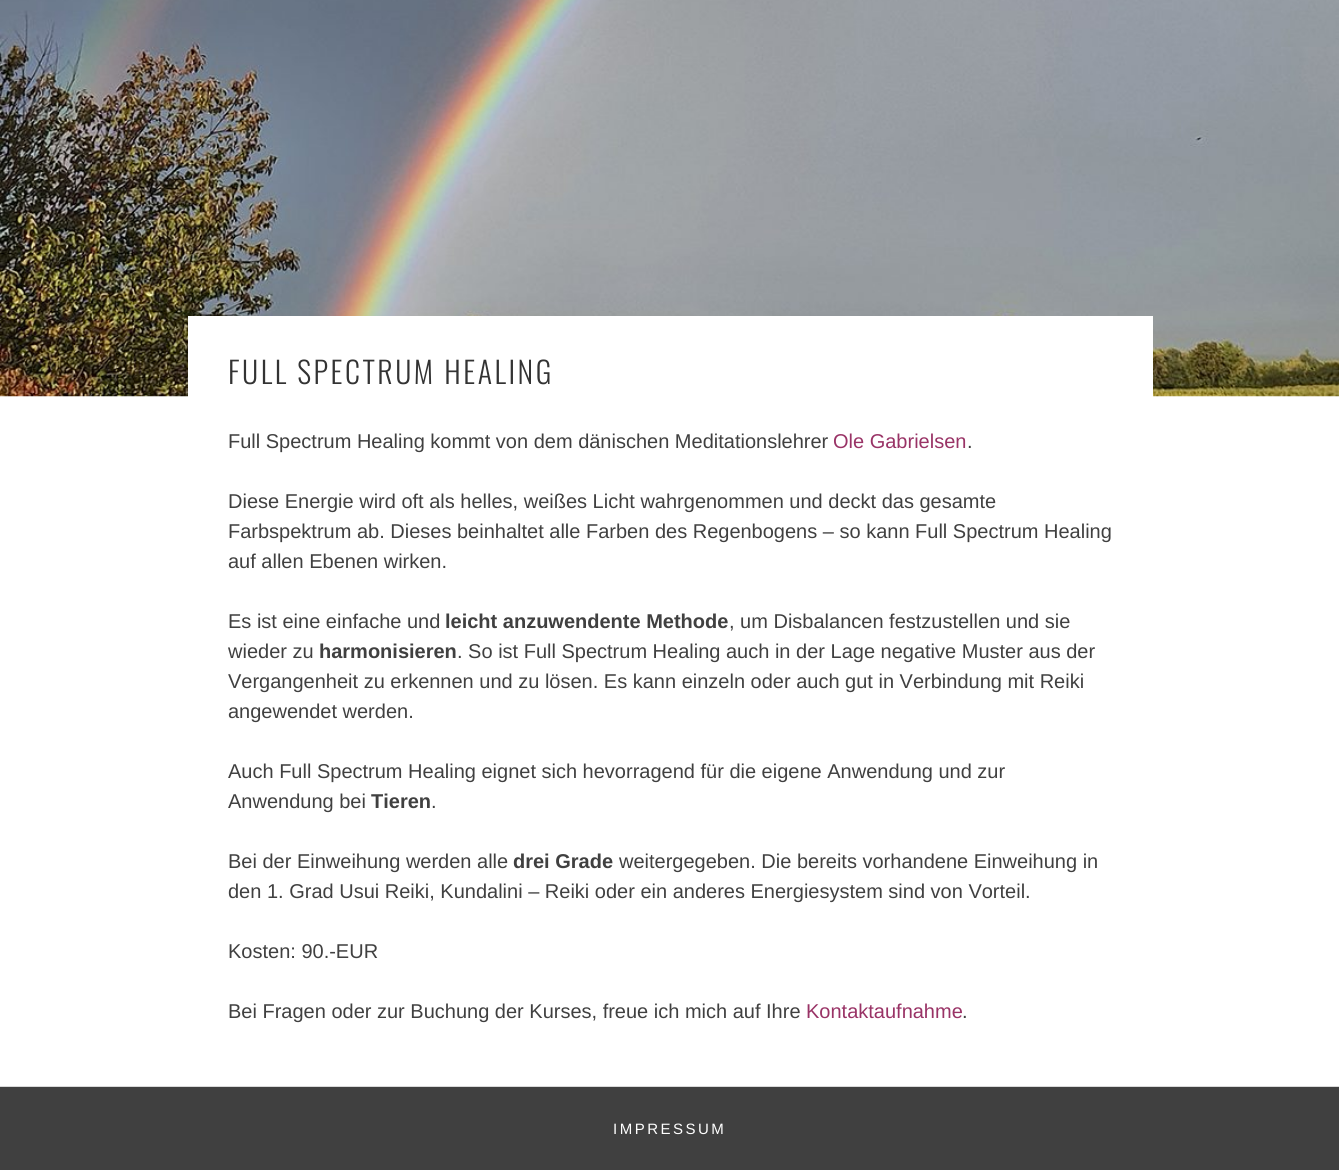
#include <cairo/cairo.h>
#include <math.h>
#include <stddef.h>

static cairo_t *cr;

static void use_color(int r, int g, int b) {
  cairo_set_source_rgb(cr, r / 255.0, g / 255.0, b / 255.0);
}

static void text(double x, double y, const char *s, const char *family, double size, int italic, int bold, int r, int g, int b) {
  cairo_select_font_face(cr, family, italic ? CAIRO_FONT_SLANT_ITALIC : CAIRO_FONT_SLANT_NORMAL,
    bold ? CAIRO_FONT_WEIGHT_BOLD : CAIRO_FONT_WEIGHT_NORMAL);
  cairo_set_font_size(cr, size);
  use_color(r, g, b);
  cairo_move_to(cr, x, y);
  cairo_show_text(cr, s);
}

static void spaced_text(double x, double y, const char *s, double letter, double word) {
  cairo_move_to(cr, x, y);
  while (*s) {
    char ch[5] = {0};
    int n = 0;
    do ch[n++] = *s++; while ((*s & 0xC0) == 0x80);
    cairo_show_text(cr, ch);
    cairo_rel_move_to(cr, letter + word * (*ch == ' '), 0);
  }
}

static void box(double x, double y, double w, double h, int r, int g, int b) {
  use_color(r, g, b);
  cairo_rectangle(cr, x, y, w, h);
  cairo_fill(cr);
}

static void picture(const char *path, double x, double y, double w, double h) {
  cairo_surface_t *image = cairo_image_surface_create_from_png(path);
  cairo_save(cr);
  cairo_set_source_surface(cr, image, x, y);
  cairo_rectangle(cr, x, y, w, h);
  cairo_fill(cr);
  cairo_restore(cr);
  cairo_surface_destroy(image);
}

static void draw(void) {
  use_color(255, 255, 255);
  cairo_paint(cr);
  picture("img_01.png", 0, 0, 1339, 397);
  box(188, 316, 965, 81, 255, 255, 255);
  box(0, 1087, 1339, 83, 64, 64, 64);
  box(0, 1086, 1339, 1, 217, 217, 217);
  cairo_select_font_face(cr, "Oswald Light", CAIRO_FONT_SLANT_NORMAL, CAIRO_FONT_WEIGHT_NORMAL);
  cairo_set_font_size(cr, 30);
  use_color(51, 51, 51);
  spaced_text(228, 384, "FULL SPECTRUM HEALING", 2.5, 0);
  text(228, 448, "Full Spectrum Healing kommt von dem dänischen Meditationslehrer", "Liberation Sans", 20, 0, 0, 64, 64, 64);
  text(833, 448, "Ole Gabrielsen", "Liberation Sans", 20, 0, 0, 153, 51, 102);
  text(967, 448, ".", "Liberation Sans", 20, 0, 0, 64, 64, 64);
  text(228, 508, "Diese Energie wird oft als helles, weißes Licht wahrgenommen und deckt das gesamte", "Liberation Sans", 20, 0, 0, 64, 64, 64);
  text(228, 538, "Farbspektrum ab. Dieses beinhaltet alle Farben des Regenbogens – so kann Full Spectrum Healing", "Liberation Sans", 20, 0, 0, 64, 64, 64);
  text(228, 568, "auf allen Ebenen wirken.", "Liberation Sans", 20, 0, 0, 64, 64, 64);
  text(228, 628, "Es ist eine einfache und", "Liberation Sans", 20, 0, 0, 64, 64, 64);
  text(445, 628, "leicht anzuwendente Methode", "Liberation Sans", 20, 0, 1, 64, 64, 64);
  text(729, 628, ", um Disbalancen festzustellen und sie", "Liberation Sans", 20, 0, 0, 64, 64, 64);
  text(228, 658, "wieder zu", "Liberation Sans", 20, 0, 0, 64, 64, 64);
  text(319, 658, "harmonisieren", "Liberation Sans", 20, 0, 1, 64, 64, 64);
  text(457, 658, ". So ist Full Spectrum Healing auch in der Lage negative Muster aus der", "Liberation Sans", 20, 0, 0, 64, 64, 64);
  text(228, 688, "Vergangenheit zu erkennen und zu lösen. Es kann einzeln oder auch gut in Verbindung mit Reiki", "Liberation Sans", 20, 0, 0, 64, 64, 64);
  text(228, 718, "angewendet werden.", "Liberation Sans", 20, 0, 0, 64, 64, 64);
  text(228, 778, "Auch Full Spectrum Healing eignet sich hevorragend für die eigene Anwendung und zur", "Liberation Sans", 20, 0, 0, 64, 64, 64);
  text(228, 808, "Anwendung bei", "Liberation Sans", 20, 0, 0, 64, 64, 64);
  text(371, 808, "Tieren", "Liberation Sans", 20, 0, 1, 64, 64, 64);
  text(431, 808, ".", "Liberation Sans", 20, 0, 0, 64, 64, 64);
  text(228, 868, "Bei der Einweihung werden alle", "Liberation Sans", 20, 0, 0, 64, 64, 64);
  text(513, 868, "drei Grade", "Liberation Sans", 20, 0, 1, 64, 64, 64);
  text(619, 868, "weitergegeben. Die bereits vorhandene Einweihung in", "Liberation Sans", 20, 0, 0, 64, 64, 64);
  text(228, 898, "den 1. Grad Usui Reiki, Kundalini – Reiki oder ein anderes Energiesystem sind von Vorteil.", "Liberation Sans", 20, 0, 0, 64, 64, 64);
  text(228, 958, "Kosten: 90.-EUR", "Liberation Sans", 20, 0, 0, 64, 64, 64);
  text(228, 1018, "Bei Fragen oder zur Buchung der Kurses, freue ich mich auf Ihre", "Liberation Sans", 20, 0, 0, 64, 64, 64);
  text(806, 1018, "Kontaktaufnahme", "Liberation Sans", 20, 0, 0, 153, 51, 102);
  text(962, 1018, ".", "Liberation Sans", 20, 0, 0, 64, 64, 64);
  cairo_set_font_size(cr, 15);
  use_color(255, 255, 255);
  spaced_text(613, 1134, "IMPRESSUM", 2.5, 0);
}

int main(void) {
  cairo_surface_t *surface = cairo_image_surface_create(CAIRO_FORMAT_RGB24, 1339, 1170);
  cr = cairo_create(surface);
  cairo_font_options_t *options = cairo_font_options_create();
  cairo_font_options_set_hint_metrics(options, CAIRO_HINT_METRICS_OFF);
  cairo_font_options_set_hint_style(options, CAIRO_HINT_STYLE_NONE);
  cairo_set_font_options(cr, options);
  cairo_set_miter_limit(cr, 4);
  draw();
  cairo_surface_write_to_png(surface, "out.png");
  cairo_font_options_destroy(options);
  cairo_destroy(cr);
  cairo_surface_destroy(surface);
  return 0;
}
